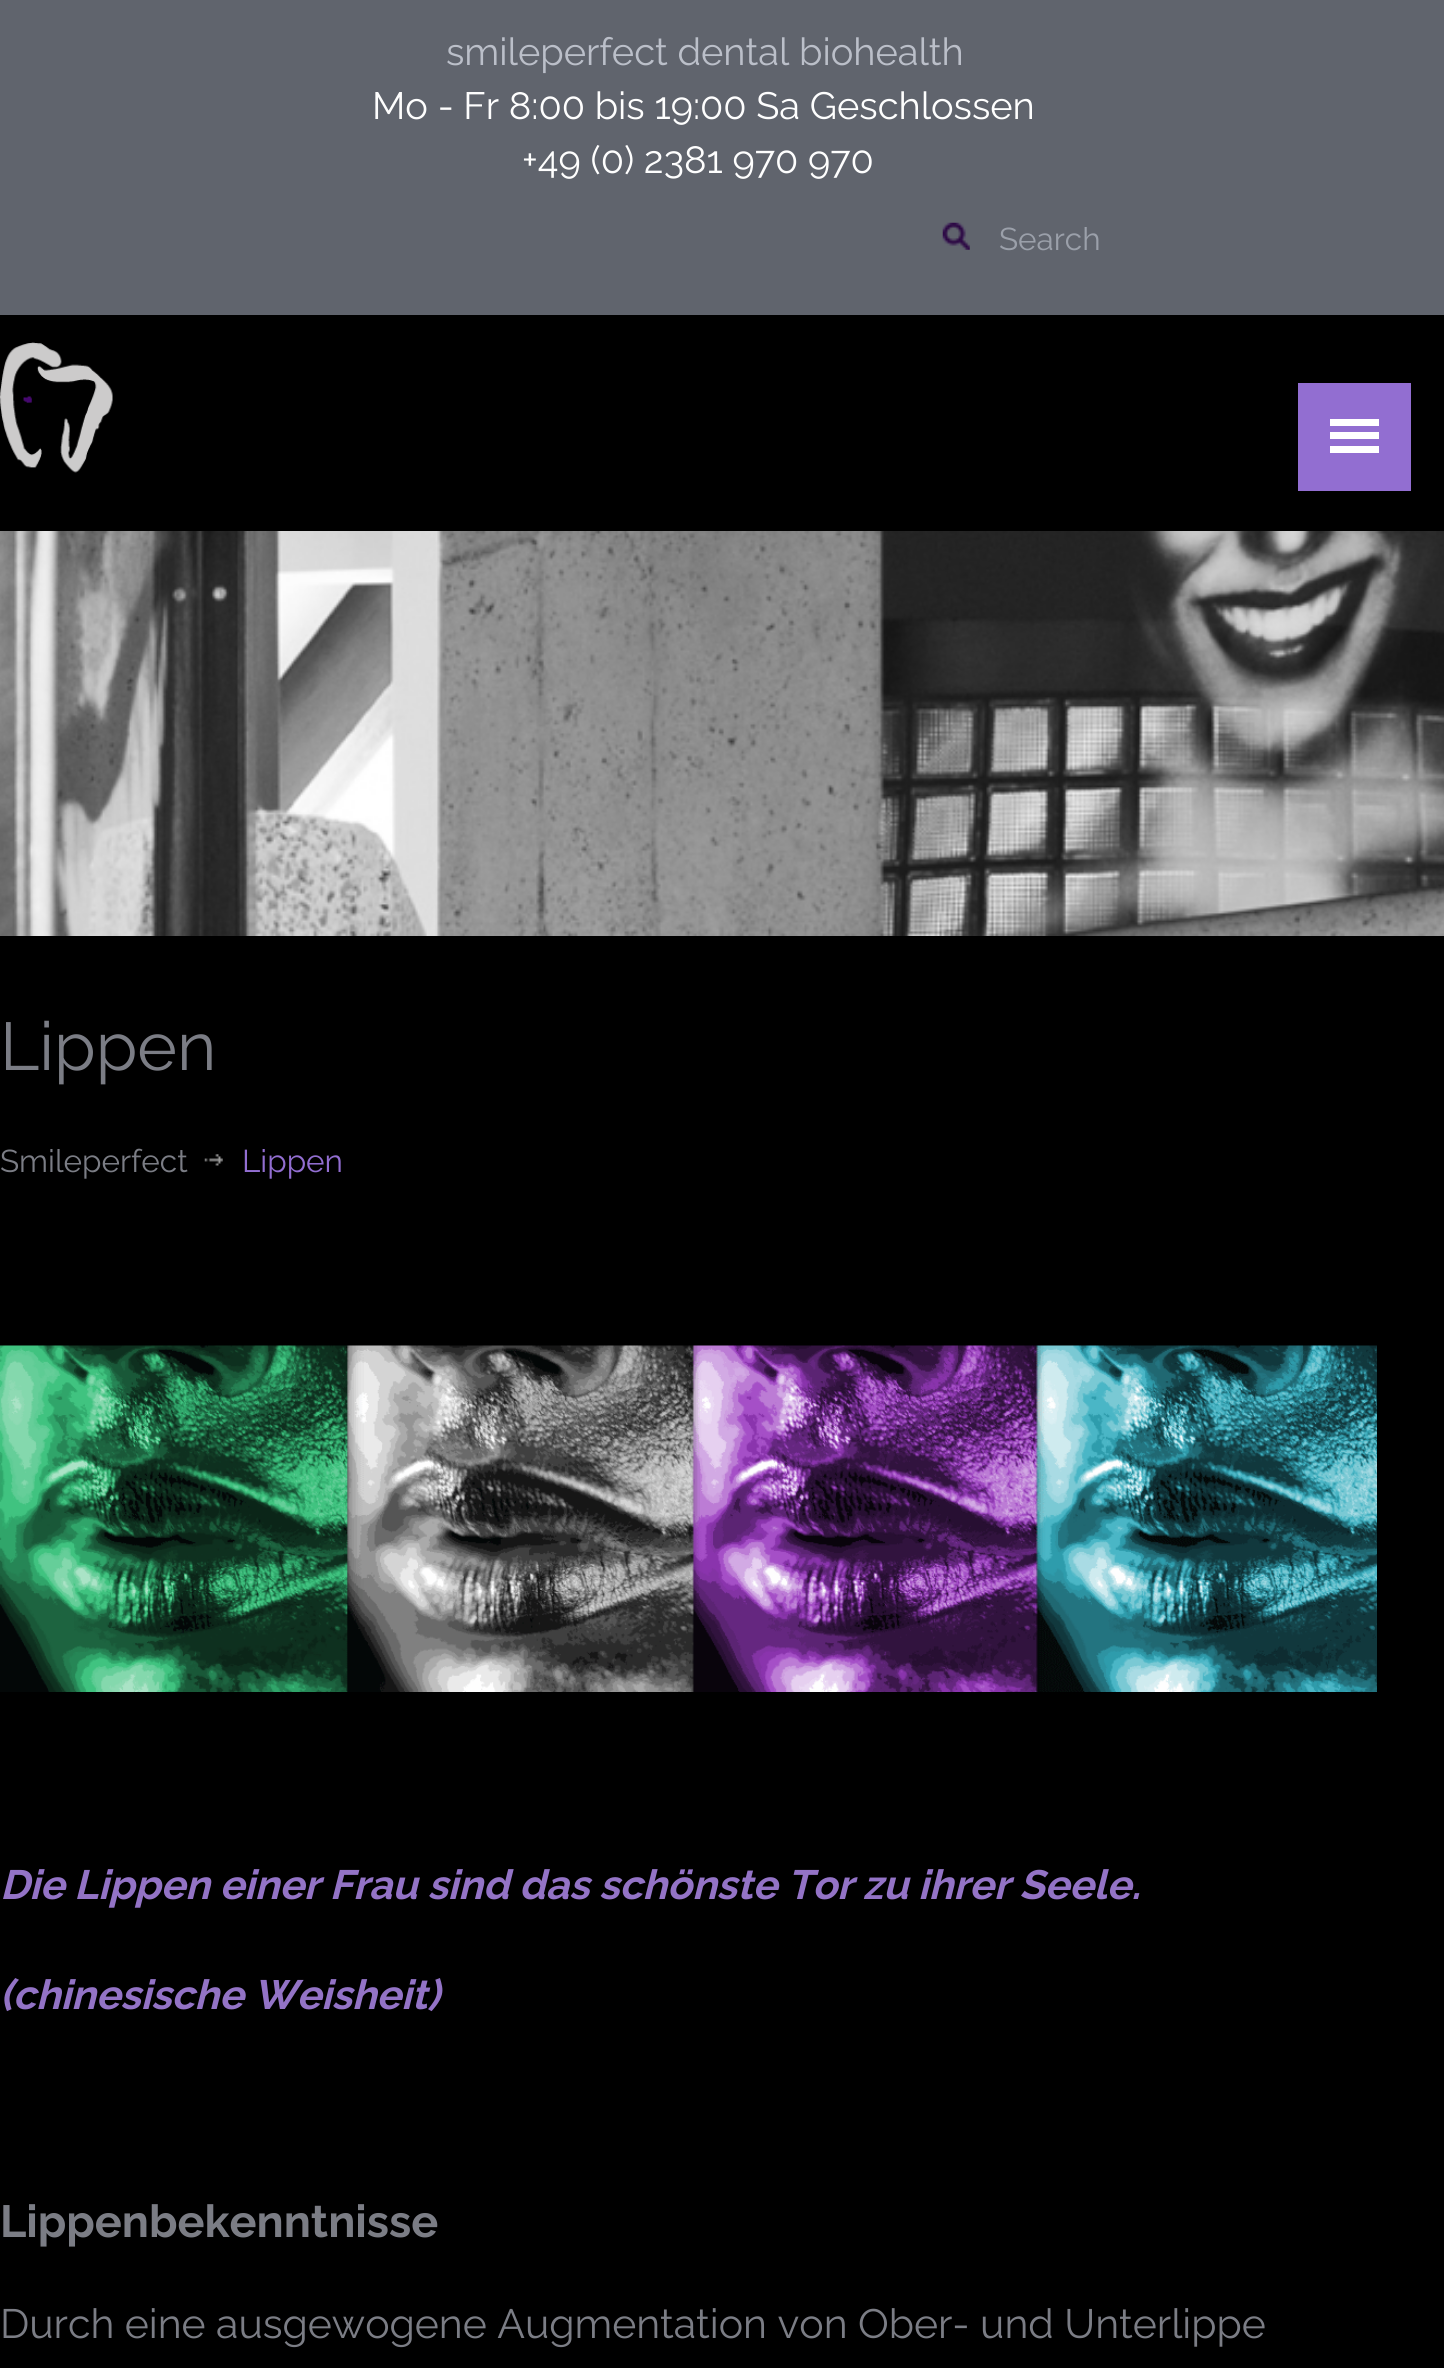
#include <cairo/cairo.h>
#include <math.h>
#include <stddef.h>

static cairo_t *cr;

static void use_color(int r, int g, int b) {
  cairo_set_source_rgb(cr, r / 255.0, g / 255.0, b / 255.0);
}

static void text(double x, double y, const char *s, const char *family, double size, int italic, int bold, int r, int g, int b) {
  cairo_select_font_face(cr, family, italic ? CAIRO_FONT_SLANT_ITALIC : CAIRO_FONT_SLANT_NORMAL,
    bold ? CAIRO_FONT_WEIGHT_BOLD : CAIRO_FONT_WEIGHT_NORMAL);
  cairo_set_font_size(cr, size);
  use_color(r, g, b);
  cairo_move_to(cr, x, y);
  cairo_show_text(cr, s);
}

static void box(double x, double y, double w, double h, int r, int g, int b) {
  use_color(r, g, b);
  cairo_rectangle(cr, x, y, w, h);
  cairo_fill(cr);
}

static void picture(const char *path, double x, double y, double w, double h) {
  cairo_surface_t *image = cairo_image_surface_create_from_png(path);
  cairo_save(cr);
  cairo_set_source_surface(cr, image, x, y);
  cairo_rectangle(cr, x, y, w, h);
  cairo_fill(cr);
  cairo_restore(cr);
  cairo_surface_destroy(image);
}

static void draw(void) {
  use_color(0, 0, 0);
  cairo_paint(cr);
  box(0, 0, 1444, 315, 96, 100, 109);
  picture("img_01.png", 942, 222, 28, 28);
  picture("img_02.png", 0, 342, 113, 131);
  box(1298, 383, 113, 108, 146, 110, 209);
  box(1330, 419, 49, 7, 255, 255, 255);
  box(1330, 432, 49, 7, 255, 255, 255);
  box(1330, 446, 49, 7, 255, 255, 255);
  picture("img_03.png", 0, 531, 1444, 405);
  picture("img_04.png", 204, 1154, 19, 12);
  picture("img_05.png", 0, 1345, 1377, 347);
  text(446, 65, "smileperfect dental biohealth", "Raleway", 38, 0, 0, 187, 191, 201);
  text(372, 119, "Mo - Fr 8:00 bis 19:00 Sa Geschlossen", "Raleway", 38, 0, 0, 254, 254, 254);
  text(522, 173, "+49 (0) 2381 970 970", "Raleway", 38, 0, 0, 254, 254, 254);
  text(999, 250, "Search", "Raleway", 31.5, 0, 0, 155, 160, 170);
  text(0, 1070, "Lippen", "Raleway", 67.5, 0, 0, 123, 125, 133);
  text(0, 1172, "Smileperfect", "Raleway", 31.5, 0, 0, 123, 125, 133);
  text(242, 1172, "Lippen", "Raleway", 31.5, 0, 0, 146, 110, 209);
  text(0, 1899, "Die Lippen einer Frau sind das schönste Tor zu ihrer Seele.", "Raleway", 40.95, 1, 1, 147, 115, 198);
  text(0, 2009, "(chinesische Weisheit)", "Raleway", 40.95, 1, 1, 147, 115, 198);
  text(0, 2237, "Lippenbekenntnisse", "Raleway", 45, 0, 1, 123, 125, 133);
  text(0, 2338, "Durch eine ausgewogene Augmentation von Ober- und Unterlippe", "Raleway", 40.95, 0, 0, 123, 125, 133);
}

int main(void) {
  cairo_surface_t *surface = cairo_image_surface_create(CAIRO_FORMAT_RGB24, 1444, 2368);
  cr = cairo_create(surface);
  cairo_font_options_t *options = cairo_font_options_create();
  cairo_font_options_set_hint_metrics(options, CAIRO_HINT_METRICS_OFF);
  cairo_font_options_set_hint_style(options, CAIRO_HINT_STYLE_NONE);
  cairo_set_font_options(cr, options);
  cairo_set_miter_limit(cr, 4);
  draw();
  cairo_surface_write_to_png(surface, "out.png");
  cairo_font_options_destroy(options);
  cairo_destroy(cr);
  cairo_surface_destroy(surface);
  return 0;
}
